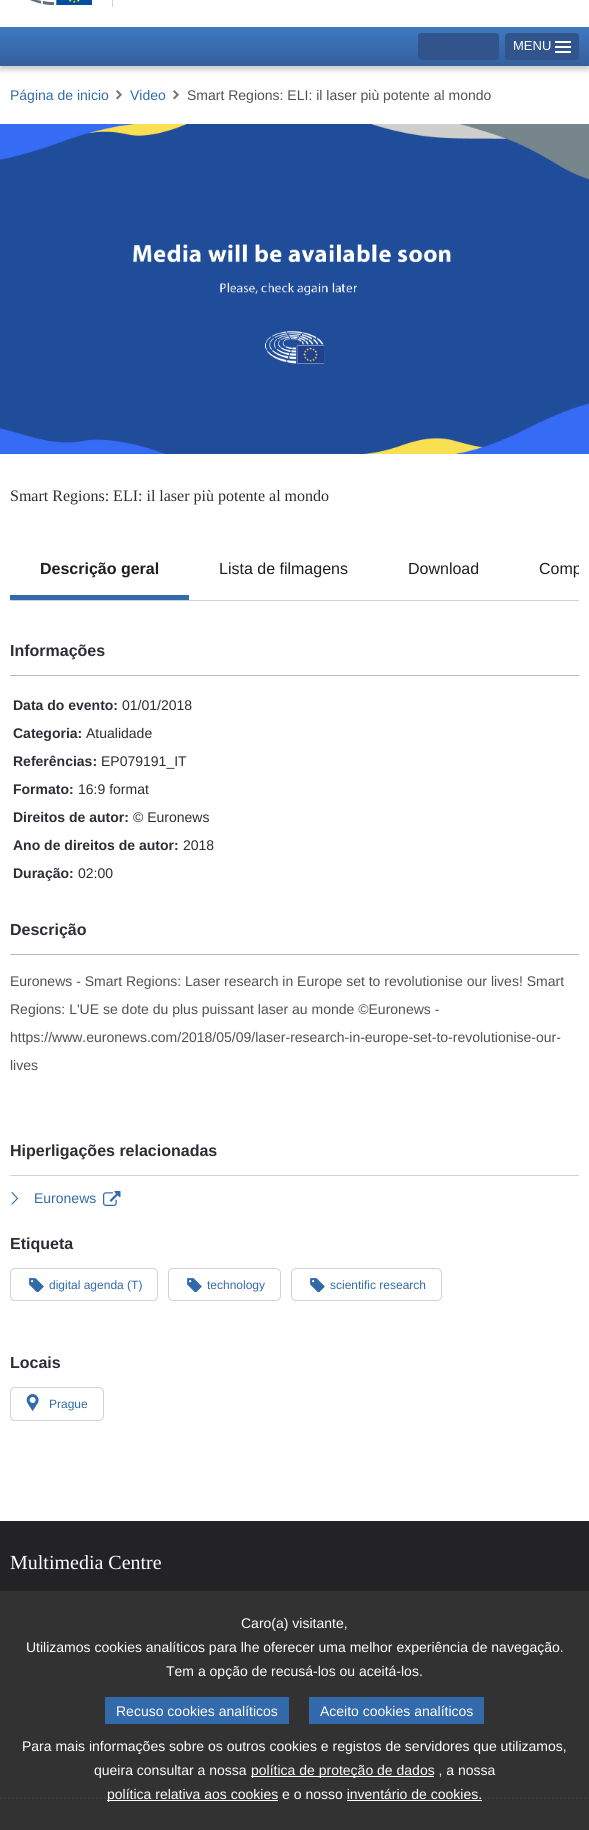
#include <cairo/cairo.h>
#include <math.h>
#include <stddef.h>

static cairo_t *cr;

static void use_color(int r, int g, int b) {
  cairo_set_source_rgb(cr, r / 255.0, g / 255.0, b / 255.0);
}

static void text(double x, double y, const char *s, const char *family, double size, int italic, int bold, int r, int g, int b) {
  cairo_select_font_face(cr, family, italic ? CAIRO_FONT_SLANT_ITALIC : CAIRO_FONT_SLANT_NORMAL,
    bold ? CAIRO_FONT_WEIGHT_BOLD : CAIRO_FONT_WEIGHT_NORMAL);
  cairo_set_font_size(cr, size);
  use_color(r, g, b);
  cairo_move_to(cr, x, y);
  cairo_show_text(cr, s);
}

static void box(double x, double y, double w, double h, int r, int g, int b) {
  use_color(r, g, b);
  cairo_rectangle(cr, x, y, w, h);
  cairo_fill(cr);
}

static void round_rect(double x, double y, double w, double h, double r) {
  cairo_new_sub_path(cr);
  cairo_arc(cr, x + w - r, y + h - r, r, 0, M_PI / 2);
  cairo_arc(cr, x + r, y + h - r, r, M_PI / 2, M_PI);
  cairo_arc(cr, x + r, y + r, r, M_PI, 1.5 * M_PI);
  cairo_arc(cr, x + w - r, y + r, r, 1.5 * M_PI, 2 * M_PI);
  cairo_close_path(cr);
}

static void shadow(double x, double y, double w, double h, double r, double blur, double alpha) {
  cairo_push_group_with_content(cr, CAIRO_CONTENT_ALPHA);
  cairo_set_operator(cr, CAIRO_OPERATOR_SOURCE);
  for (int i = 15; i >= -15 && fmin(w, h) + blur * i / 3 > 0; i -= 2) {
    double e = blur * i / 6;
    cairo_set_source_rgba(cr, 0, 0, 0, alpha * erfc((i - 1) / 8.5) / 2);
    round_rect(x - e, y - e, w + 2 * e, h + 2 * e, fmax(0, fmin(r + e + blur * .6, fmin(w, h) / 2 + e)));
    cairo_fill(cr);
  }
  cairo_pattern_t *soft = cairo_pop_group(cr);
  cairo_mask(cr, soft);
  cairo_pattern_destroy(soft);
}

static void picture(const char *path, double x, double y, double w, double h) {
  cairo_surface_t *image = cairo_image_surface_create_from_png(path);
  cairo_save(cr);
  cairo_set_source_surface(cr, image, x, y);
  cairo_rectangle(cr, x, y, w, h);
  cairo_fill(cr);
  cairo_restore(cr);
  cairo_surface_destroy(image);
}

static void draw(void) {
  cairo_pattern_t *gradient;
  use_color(255, 255, 255);
  cairo_paint(cr);
  picture("img_01.png", 30, 0, 62, 5);
  box(112, 0, 1, 7, 209, 211, 212);
  use_color(0, 0, 0);
  shadow(0, 31, 589, 39, 0, 2.5, 0.2);
  gradient = cairo_pattern_create_linear(295, 27, 295, 66);
  cairo_pattern_add_color_stop_rgba(gradient, 0, 0.239, 0.478, 0.757, 1);
  cairo_pattern_add_color_stop_rgba(gradient, 1, 0.204, 0.369, 0.612, 1);
  cairo_set_source(cr, gradient);
  cairo_pattern_destroy(gradient);
  cairo_rectangle(cr, 0, 27, 589, 39);
  cairo_fill(cr);
  use_color(50, 84, 141);
  round_rect(418, 33, 81, 27, 3);
  cairo_fill(cr);
  round_rect(505, 33, 74, 27, 3);
  cairo_fill(cr);
  box(555, 41, 16, 2, 255, 255, 255);
  box(555, 46, 16, 2, 255, 255, 255);
  box(555, 51, 16, 2, 255, 255, 255);
  picture("img_02.png", 116, 90, 6, 10);
  picture("img_02.png", 173, 90, 6, 10);
  picture("img_03.png", 0, 124, 589, 330);
  box(10, 600, 569, 1, 209, 211, 212);
  box(10, 595, 179, 5, 50, 106, 171);
  box(10, 675, 569, 1, 181, 185, 186);
  box(10, 954, 569, 1, 181, 185, 186);
  box(10, 1175, 569, 1, 209, 211, 212);
  cairo_new_path(cr);
  cairo_move_to(cr, 12, 1204);
  cairo_line_to(cr, 17.5, 1198.5);
  cairo_line_to(cr, 12, 1192.5);
  use_color(50, 104, 169);
  cairo_set_line_width(cr, 1.1);
  cairo_set_line_cap(cr, CAIRO_LINE_CAP_ROUND);
  cairo_set_line_join(cr, CAIRO_LINE_JOIN_ROUND);
  cairo_stroke(cr);
  picture("img_04.png", 103, 1191, 18, 15);
  round_rect(10.5, 1268.5, 147, 32, 4.5);
  use_color(209, 210, 211);
  cairo_set_line_width(cr, 1);
  cairo_set_line_cap(cr, CAIRO_LINE_CAP_BUTT);
  cairo_set_line_join(cr, CAIRO_LINE_JOIN_MITER);
  cairo_stroke(cr);
  picture("img_05.png", 29, 1278, 15, 14);
  round_rect(168.5, 1268.5, 112, 32, 4.5);
  cairo_stroke(cr);
  picture("img_05.png", 187, 1278, 15, 14);
  round_rect(291.5, 1268.5, 150, 32, 4.5);
  cairo_stroke(cr);
  picture("img_05.png", 310, 1278, 15, 14);
  round_rect(10.5, 1387.5, 93, 33, 4.5);
  cairo_stroke(cr);
  picture("img_06.png", 26, 1394, 13, 17);
  box(0, 1521, 589, 70, 35, 34, 37);
  box(0, 1591, 589, 239, 50, 50, 50);
  cairo_new_path(cr);
  cairo_move_to(cr, 0, 1798);
  cairo_line_to(cr, 589, 1798);
  use_color(59, 59, 59);
  cairo_set_line_width(cr, 2);
  cairo_set_dash(cr, (double[]){2, 2}, 2, 0);
  cairo_stroke(cr);
  box(105, 1697, 184, 27, 50, 106, 171);
  box(309, 1697, 175, 27, 50, 106, 171);
  box(251, 1776, 183, 1, 255, 255, 255);
  box(107, 1800, 171, 1, 255, 255, 255);
  box(347, 1800, 135, 1, 255, 255, 255);
  text(513, 50, "MENU", "Liberation Sans", 13, 0, 0, 255, 255, 255);
  text(10, 100, "Página de inicio", "Liberation Sans", 14, 0, 0, 50, 106, 171);
  text(130, 100, "Video", "Liberation Sans", 14, 0, 0, 50, 106, 171);
  text(187, 100, "Smart Regions: ELI: il laser più potente al mondo", "Liberation Sans", 14, 0, 0, 80, 81, 84);
  text(10, 501, "Smart Regions: ELI: il laser più potente al mondo", "Liberation Serif", 16, 0, 0, 43, 46, 52);
  text(40, 574, "Descrição geral", "Liberation Sans", 16, 0, 1, 30, 30, 31);
  text(219, 574, "Lista de filmagens", "Liberation Sans", 16, 0, 0, 30, 30, 31);
  text(408, 574, "Download", "Liberation Sans", 16, 0, 0, 30, 30, 31);
  cairo_save(cr);
  cairo_rectangle(cr, 509, 538, 70, 62);
  cairo_clip(cr);
  text(539, 574, "Comp", "Liberation Sans", 16, 0, 0, 30, 30, 31);
  cairo_restore(cr);
  text(10, 656, "Informações", "Liberation Sans", 16, 0, 1, 43, 46, 52);
  text(13, 710, "Data do evento:", "Liberation Sans", 14, 0, 1, 43, 46, 52);
  text(122, 710, "01/01/2018", "Liberation Sans", 14, 0, 0, 43, 46, 52);
  text(13, 738, "Categoria:", "Liberation Sans", 14, 0, 1, 43, 46, 52);
  text(86, 738, "Atualidade", "Liberation Sans", 14, 0, 0, 43, 46, 52);
  text(13, 766, "Referências:", "Liberation Sans", 14, 0, 1, 43, 46, 52);
  text(101, 766, "EP079191_IT", "Liberation Sans", 14, 0, 0, 43, 46, 52);
  text(13, 794, "Formato:", "Liberation Sans", 14, 0, 1, 43, 46, 52);
  text(78, 794, "16:9 format", "Liberation Sans", 14, 0, 0, 43, 46, 52);
  text(13, 822, "Direitos de autor:", "Liberation Sans", 14, 0, 1, 43, 46, 52);
  text(133, 822, "© Euronews", "Liberation Sans", 14, 0, 0, 43, 46, 52);
  text(13, 850, "Ano de direitos de autor:", "Liberation Sans", 14, 0, 1, 43, 46, 52);
  text(183, 850, "2018", "Liberation Sans", 14, 0, 0, 43, 46, 52);
  text(13, 878, "Duração:", "Liberation Sans", 14, 0, 1, 43, 46, 52);
  text(78, 878, "02:00", "Liberation Sans", 14, 0, 0, 43, 46, 52);
  text(10, 935, "Descrição", "Liberation Sans", 16, 0, 1, 43, 46, 52);
  text(10, 986, "Euronews - Smart Regions: Laser research in Europe set to revolutionise our lives! Smart", "Liberation Sans", 14, 0, 0, 80, 81, 84);
  text(10, 1014, "Regions: L'UE se dote du plus puissant laser au monde ©Euronews -", "Liberation Sans", 14, 0, 0, 80, 81, 84);
  text(10, 1042, "https://www.euronews.com/2018/05/09/laser-research-in-europe-set-to-revolutionise-our-", "Liberation Sans", 14, 0, 0, 80, 81, 84);
  text(10, 1070, "lives", "Liberation Sans", 14, 0, 0, 80, 81, 84);
  text(10, 1156, "Hiperligações relacionadas", "Liberation Sans", 16, 0, 1, 43, 46, 52);
  text(34, 1203, "Euronews", "Liberation Sans", 14, 0, 0, 50, 106, 171);
  text(10, 1249, "Etiqueta", "Liberation Sans", 16, 0, 1, 43, 46, 52);
  text(49, 1289, "digital agenda (T)", "Liberation Sans", 12, 0, 0, 50, 106, 171);
  text(207, 1289, "technology", "Liberation Sans", 12, 0, 0, 50, 106, 171);
  text(330, 1289, "scientific research", "Liberation Sans", 12, 0, 0, 50, 106, 171);
  text(10, 1368, "Locais", "Liberation Sans", 16, 0, 1, 43, 46, 52);
  text(49, 1408, "Prague", "Liberation Sans", 12, 0, 0, 50, 106, 171);
  text(10, 1569, "Multimedia Centre", "Liberation Serif", 20, 0, 0, 255, 255, 255);
  text(241, 1628, "Caro(a) visitante,", "Liberation Sans", 14, 0, 0, 255, 255, 255);
  text(26, 1652, "Utilizamos cookies analíticos para lhe oferecer uma melhor experiência de navegação.", "Liberation Sans", 14, 0, 0, 255, 255, 255);
  text(166, 1676, "Tem a opção de recusá-los ou aceitá-los.", "Liberation Sans", 14, 0, 0, 255, 255, 255);
  text(116, 1716, "Recuso cookies analíticos", "Liberation Sans", 14, 0, 0, 255, 255, 255);
  text(320, 1716, "Aceito cookies analíticos", "Liberation Sans", 14, 0, 0, 255, 255, 255);
  text(22, 1751, "Para mais informações sobre os outros cookies e registos de servidores que utilizamos,", "Liberation Sans", 14, 0, 0, 255, 255, 255);
  text(94, 1775, "queira consultar a nossa", "Liberation Sans", 14, 0, 0, 255, 255, 255);
  text(251, 1775, "política de proteção de dados , a nossa", "Liberation Sans", 14, 0, 0, 255, 255, 255);
  text(107, 1799, "política relativa aos cookies e o nosso inventário de cookies.", "Liberation Sans", 14, 0, 0, 255, 255, 255);
}

int main(void) {
  cairo_surface_t *surface = cairo_image_surface_create(CAIRO_FORMAT_RGB24, 589, 1830);
  cr = cairo_create(surface);
  cairo_font_options_t *options = cairo_font_options_create();
  cairo_font_options_set_hint_metrics(options, CAIRO_HINT_METRICS_OFF);
  cairo_font_options_set_hint_style(options, CAIRO_HINT_STYLE_NONE);
  cairo_set_font_options(cr, options);
  cairo_set_miter_limit(cr, 4);
  draw();
  cairo_surface_write_to_png(surface, "out.png");
  cairo_font_options_destroy(options);
  cairo_destroy(cr);
  cairo_surface_destroy(surface);
  return 0;
}
